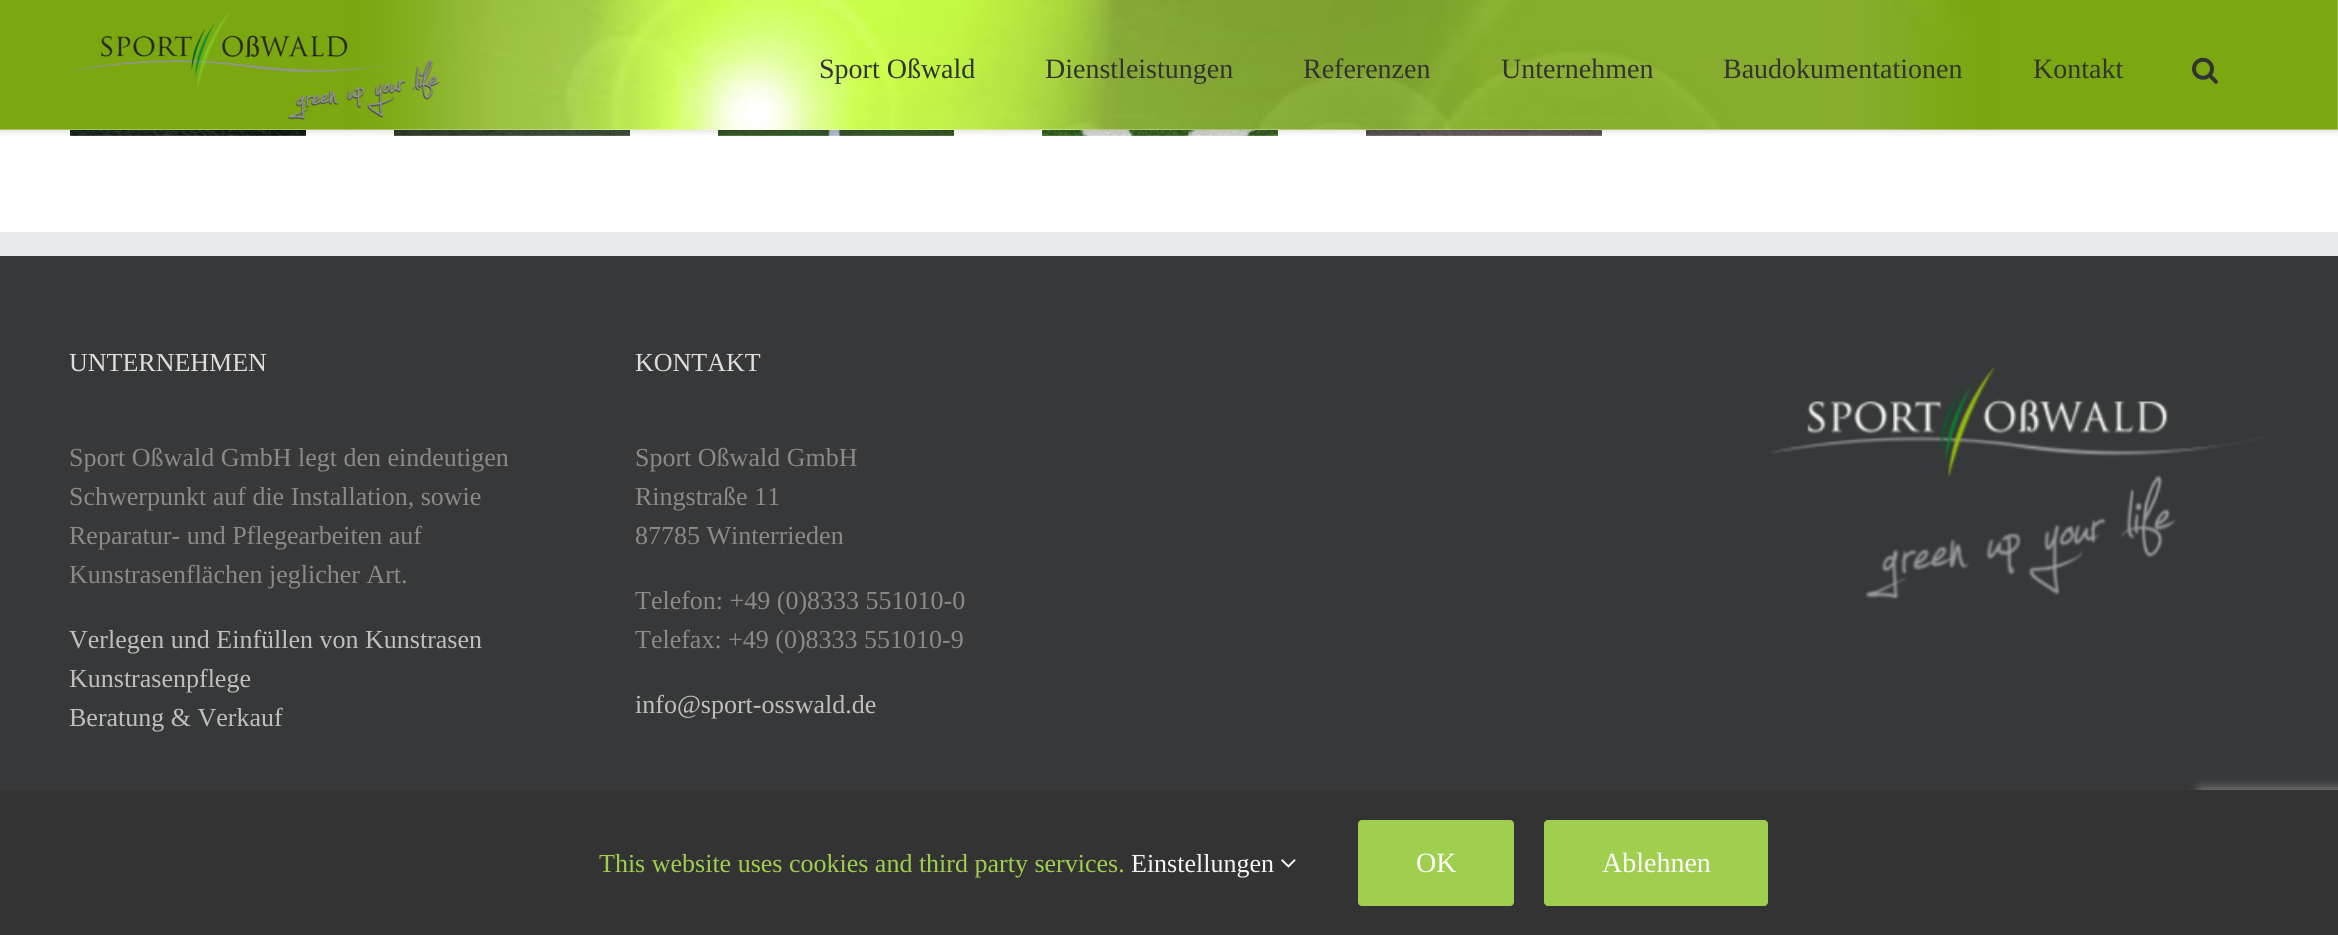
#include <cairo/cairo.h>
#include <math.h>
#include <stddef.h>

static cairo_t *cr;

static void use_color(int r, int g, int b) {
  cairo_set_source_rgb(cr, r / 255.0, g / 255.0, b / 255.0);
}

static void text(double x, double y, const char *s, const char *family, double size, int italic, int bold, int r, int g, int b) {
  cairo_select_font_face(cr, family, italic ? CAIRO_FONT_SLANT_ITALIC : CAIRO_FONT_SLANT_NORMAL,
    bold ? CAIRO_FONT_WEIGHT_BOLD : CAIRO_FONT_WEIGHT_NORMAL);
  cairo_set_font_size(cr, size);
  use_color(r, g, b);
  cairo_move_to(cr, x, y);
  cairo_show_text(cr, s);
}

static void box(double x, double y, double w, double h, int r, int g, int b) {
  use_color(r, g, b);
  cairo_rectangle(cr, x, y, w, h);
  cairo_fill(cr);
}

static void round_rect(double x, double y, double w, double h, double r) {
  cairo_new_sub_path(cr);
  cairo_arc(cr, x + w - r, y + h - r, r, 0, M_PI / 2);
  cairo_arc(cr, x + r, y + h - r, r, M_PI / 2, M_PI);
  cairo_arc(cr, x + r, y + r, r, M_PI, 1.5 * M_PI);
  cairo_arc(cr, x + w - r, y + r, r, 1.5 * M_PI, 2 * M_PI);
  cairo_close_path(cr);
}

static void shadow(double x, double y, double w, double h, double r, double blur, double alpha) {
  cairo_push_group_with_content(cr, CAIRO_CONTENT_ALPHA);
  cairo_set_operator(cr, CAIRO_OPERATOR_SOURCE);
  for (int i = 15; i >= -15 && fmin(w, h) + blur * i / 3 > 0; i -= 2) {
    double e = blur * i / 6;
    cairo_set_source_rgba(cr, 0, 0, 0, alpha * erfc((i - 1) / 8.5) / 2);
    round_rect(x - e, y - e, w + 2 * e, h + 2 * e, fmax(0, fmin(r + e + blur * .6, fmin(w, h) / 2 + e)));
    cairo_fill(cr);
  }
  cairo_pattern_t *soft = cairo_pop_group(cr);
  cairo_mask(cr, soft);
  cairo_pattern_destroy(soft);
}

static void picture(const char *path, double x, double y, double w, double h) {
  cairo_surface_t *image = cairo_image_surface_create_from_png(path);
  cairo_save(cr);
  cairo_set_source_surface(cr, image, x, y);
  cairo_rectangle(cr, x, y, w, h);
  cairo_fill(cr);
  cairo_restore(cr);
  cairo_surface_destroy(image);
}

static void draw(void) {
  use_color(255, 255, 255);
  cairo_paint(cr);
  picture("img_04.png", 70, 130, 236, 6);
  picture("img_05.png", 394, 130, 236, 6);
  picture("img_06.png", 718, 130, 236, 6);
  picture("img_07.png", 1042, 130, 236, 6);
  picture("img_08.png", 1366, 130, 236, 6);
  use_color(0, 0, 0);
  shadow(0, 2, 2338, 130, 0, 3, 0.12);
  box(0, 0, 2338, 130, 255, 255, 255);
  picture("img_01.png", 0, 0, 2338, 130);
  picture("img_02.png", 73, 13, 367, 107);
  picture("img_03.png", 2192, 57, 26, 27);
  box(0, 256, 2338, 534, 54, 56, 57);
  box(0, 232, 2338, 24, 233, 234, 238);
  picture("img_09.png", 1770, 368, 494, 108);
  picture("img_10.png", 1865, 475, 311, 125);
  use_color(128, 128, 128);
  shadow(2198, 788, 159, 120, 4, 5, 1);
  box(0, 790, 2338, 145, 51, 51, 51);
  picture("img_11.png", 1281, 859, 15, 9);
  use_color(160, 206, 78);
  round_rect(1358, 820, 156, 86, 4);
  cairo_fill(cr);
  round_rect(1544, 820, 224, 86, 4);
  cairo_fill(cr);
  text(819, 78, "Sport Oßwald", "Liberation Serif", 28, 0, 0, 51, 51, 51);
  text(1045, 78, "Dienstleistungen", "Liberation Serif", 28, 0, 0, 51, 51, 51);
  text(1303, 78, "Referenzen", "Liberation Serif", 28, 0, 0, 51, 51, 51);
  text(1501, 78, "Unternehmen", "Liberation Serif", 28, 0, 0, 51, 51, 51);
  text(1723, 78, "Baudokumentationen", "Liberation Serif", 28, 0, 0, 51, 51, 51);
  text(2033, 78, "Kontakt", "Liberation Serif", 28, 0, 0, 51, 51, 51);
  text(69, 371, "UNTERNEHMEN", "Liberation Serif", 26, 0, 0, 221, 221, 221);
  text(69, 466, "Sport Oßwald GmbH legt den eindeutigen", "Liberation Serif", 26, 0, 0, 140, 137, 137);
  text(69, 505, "Schwerpunkt auf die Installation, sowie", "Liberation Serif", 26, 0, 0, 140, 137, 137);
  text(69, 544, "Reparatur- und Pflegearbeiten auf", "Liberation Serif", 26, 0, 0, 140, 137, 137);
  text(69, 583, "Kunstrasenflächen jeglicher Art.", "Liberation Serif", 26, 0, 0, 140, 137, 137);
  text(69, 648, "Verlegen und Einfüllen von Kunstrasen", "Liberation Serif", 26, 0, 0, 191, 191, 191);
  text(69, 687, "Kunstrasenpflege", "Liberation Serif", 26, 0, 0, 191, 191, 191);
  text(69, 726, "Beratung & Verkauf", "Liberation Serif", 26, 0, 0, 191, 191, 191);
  text(635, 371, "KONTAKT", "Liberation Serif", 26, 0, 0, 221, 221, 221);
  text(635, 466, "Sport Oßwald GmbH", "Liberation Serif", 26, 0, 0, 140, 137, 137);
  text(635, 505, "Ringstraße 11", "Liberation Serif", 26, 0, 0, 140, 137, 137);
  text(635, 544, "87785 Winterrieden", "Liberation Serif", 26, 0, 0, 140, 137, 137);
  text(635, 609, "Telefon: +49 (0)8333 551010-0", "Liberation Serif", 26, 0, 0, 140, 137, 137);
  text(635, 648, "Telefax: +49 (0)8333 551010-9", "Liberation Serif", 26, 0, 0, 140, 137, 137);
  text(635, 713, "info@sport-osswald.de", "Liberation Serif", 26, 0, 0, 191, 191, 191);
  text(599, 872, "This website uses cookies and third party services.", "Liberation Serif", 26, 0, 0, 160, 206, 78);
  text(1131, 872, "Einstellungen", "Liberation Serif", 26, 0, 0, 246, 246, 246);
  text(1416, 872, "OK", "Liberation Serif", 28, 0, 0, 255, 255, 255);
  text(1602, 872, "Ablehnen", "Liberation Serif", 28, 0, 0, 255, 255, 255);
}

int main(void) {
  cairo_surface_t *surface = cairo_image_surface_create(CAIRO_FORMAT_RGB24, 2338, 935);
  cr = cairo_create(surface);
  cairo_font_options_t *options = cairo_font_options_create();
  cairo_font_options_set_hint_metrics(options, CAIRO_HINT_METRICS_OFF);
  cairo_font_options_set_hint_style(options, CAIRO_HINT_STYLE_NONE);
  cairo_set_font_options(cr, options);
  cairo_set_miter_limit(cr, 4);
  draw();
  cairo_surface_write_to_png(surface, "out.png");
  cairo_font_options_destroy(options);
  cairo_destroy(cr);
  cairo_surface_destroy(surface);
  return 0;
}
